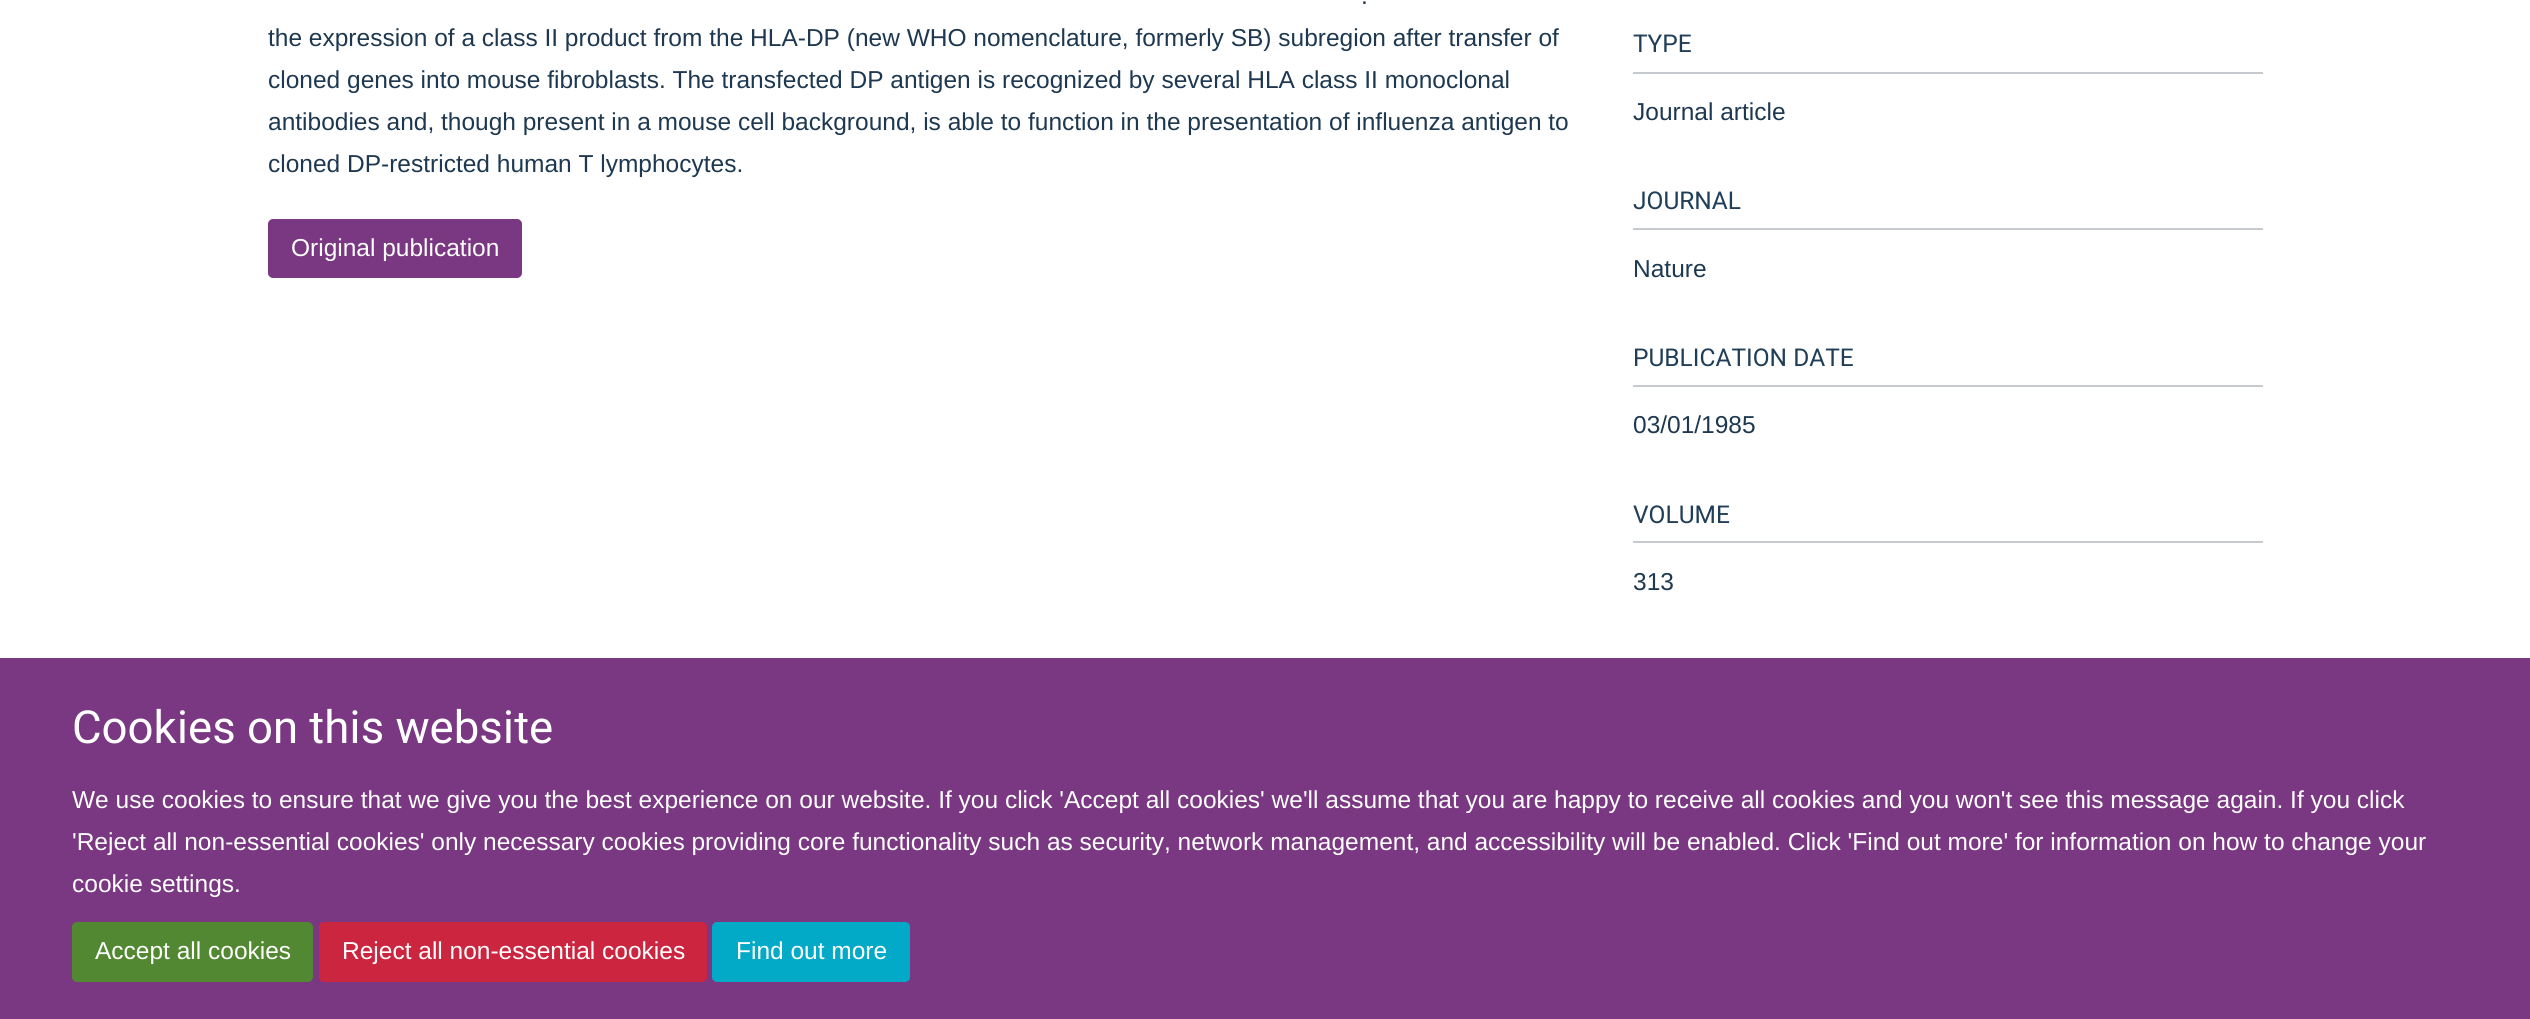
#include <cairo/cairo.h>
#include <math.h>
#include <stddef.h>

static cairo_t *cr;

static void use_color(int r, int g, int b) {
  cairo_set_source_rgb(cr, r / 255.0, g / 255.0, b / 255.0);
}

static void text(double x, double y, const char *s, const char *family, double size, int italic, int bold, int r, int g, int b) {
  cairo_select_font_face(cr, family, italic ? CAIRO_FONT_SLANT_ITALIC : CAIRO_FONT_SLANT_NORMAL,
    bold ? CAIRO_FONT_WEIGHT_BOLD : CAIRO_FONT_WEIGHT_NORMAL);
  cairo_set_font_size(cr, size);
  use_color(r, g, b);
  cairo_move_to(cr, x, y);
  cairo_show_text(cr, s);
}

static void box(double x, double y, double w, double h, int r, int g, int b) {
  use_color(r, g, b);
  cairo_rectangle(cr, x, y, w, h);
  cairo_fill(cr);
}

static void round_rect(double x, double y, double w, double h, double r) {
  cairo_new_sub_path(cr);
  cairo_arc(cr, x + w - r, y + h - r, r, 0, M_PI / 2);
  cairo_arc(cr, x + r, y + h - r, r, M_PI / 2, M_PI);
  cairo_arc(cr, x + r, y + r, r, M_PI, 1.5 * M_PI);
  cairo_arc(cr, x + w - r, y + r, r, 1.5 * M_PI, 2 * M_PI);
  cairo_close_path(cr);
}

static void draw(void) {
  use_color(255, 255, 255);
  cairo_paint(cr);
  use_color(122, 55, 130);
  round_rect(269, 220, 252, 57, 4);
  cairo_fill_preserve(cr);
  cairo_stroke(cr);
  box(1633, 72, 630, 2, 198, 202, 207);
  box(1633, 228, 630, 2, 198, 202, 207);
  box(1633, 385, 630, 2, 198, 202, 207);
  box(1633, 541, 630, 2, 198, 202, 207);
  box(0, 658, 2530, 361, 122, 55, 130);
  use_color(81, 136, 49);
  round_rect(73, 923, 239, 58, 4);
  cairo_fill_preserve(cr);
  cairo_stroke(cr);
  use_color(204, 37, 63);
  round_rect(320, 923, 386, 58, 4);
  cairo_fill_preserve(cr);
  cairo_stroke(cr);
  use_color(2, 170, 199);
  round_rect(713, 923, 196, 58, 4);
  cairo_fill_preserve(cr);
  cairo_stroke(cr);
  text(1361, 4, ".", "Liberation Sans", 24.5, 0, 0, 29, 56, 80);
  text(268, 46, "the expression of a class II product from the HLA-DP (new WHO nomenclature, formerly SB) subregion after transfer of", "Liberation Sans", 24.5, 0, 0, 29, 56, 80);
  text(268, 88, "cloned genes into mouse fibroblasts. The transfected DP antigen is recognized by several HLA class II monoclonal", "Liberation Sans", 24.5, 0, 0, 29, 56, 80);
  text(268, 130, "antibodies and, though present in a mouse cell background, is able to function in the presentation of influenza antigen to", "Liberation Sans", 24.5, 0, 0, 29, 56, 80);
  text(268, 172, "cloned DP-restricted human T lymphocytes.", "Liberation Sans", 24.5, 0, 0, 29, 56, 80);
  text(291, 256, "Original publication", "Liberation Sans", 24.5, 0, 0, 255, 255, 255);
  text(1633, 52, "TYPE", "Heebo", 24.5, 0, 0, 32, 62, 88);
  text(1633, 120, "Journal article", "Liberation Sans", 24.5, 0, 0, 29, 56, 80);
  text(1633, 209, "JOURNAL", "Heebo", 24.5, 0, 0, 32, 62, 88);
  text(1633, 277, "Nature", "Liberation Sans", 24.5, 0, 0, 29, 56, 80);
  text(1633, 366, "PUBLICATION DATE", "Heebo", 24.5, 0, 0, 32, 62, 88);
  text(1633, 433, "03/01/1985", "Liberation Sans", 24.5, 0, 0, 29, 56, 80);
  text(1633, 523, "VOLUME", "Heebo", 24.5, 0, 0, 32, 62, 88);
  text(1633, 590, "313", "Liberation Sans", 24.5, 0, 0, 29, 56, 80);
  text(72, 743, "Cookies on this website", "Heebo", 45.5, 0, 0, 255, 255, 255);
  text(72, 808, "We use cookies to ensure that we give you the best experience on our website. If you click 'Accept all cookies' we'll assume that you are happy to receive all cookies and you won't see this message again. If you click", "Liberation Sans", 24.5, 0, 0, 255, 255, 255);
  text(72, 850, "'Reject all non-essential cookies' only necessary cookies providing core functionality such as security, network management, and accessibility will be enabled. Click 'Find out more' for information on how to change your", "Liberation Sans", 24.5, 0, 0, 255, 255, 255);
  text(72, 892, "cookie settings.", "Liberation Sans", 24.5, 0, 0, 255, 255, 255);
  text(95, 959, "Accept all cookies", "Liberation Sans", 24.5, 0, 0, 255, 255, 255);
  text(342, 959, "Reject all non-essential cookies", "Liberation Sans", 24.5, 0, 0, 255, 255, 255);
  text(736, 959, "Find out more", "Liberation Sans", 24.5, 0, 0, 255, 255, 255);
}

int main(void) {
  cairo_surface_t *surface = cairo_image_surface_create(CAIRO_FORMAT_RGB24, 2530, 1019);
  cr = cairo_create(surface);
  cairo_font_options_t *options = cairo_font_options_create();
  cairo_font_options_set_hint_metrics(options, CAIRO_HINT_METRICS_OFF);
  cairo_font_options_set_hint_style(options, CAIRO_HINT_STYLE_NONE);
  cairo_set_font_options(cr, options);
  cairo_set_miter_limit(cr, 4);
  draw();
  cairo_surface_write_to_png(surface, "out.png");
  cairo_font_options_destroy(options);
  cairo_destroy(cr);
  cairo_surface_destroy(surface);
  return 0;
}
